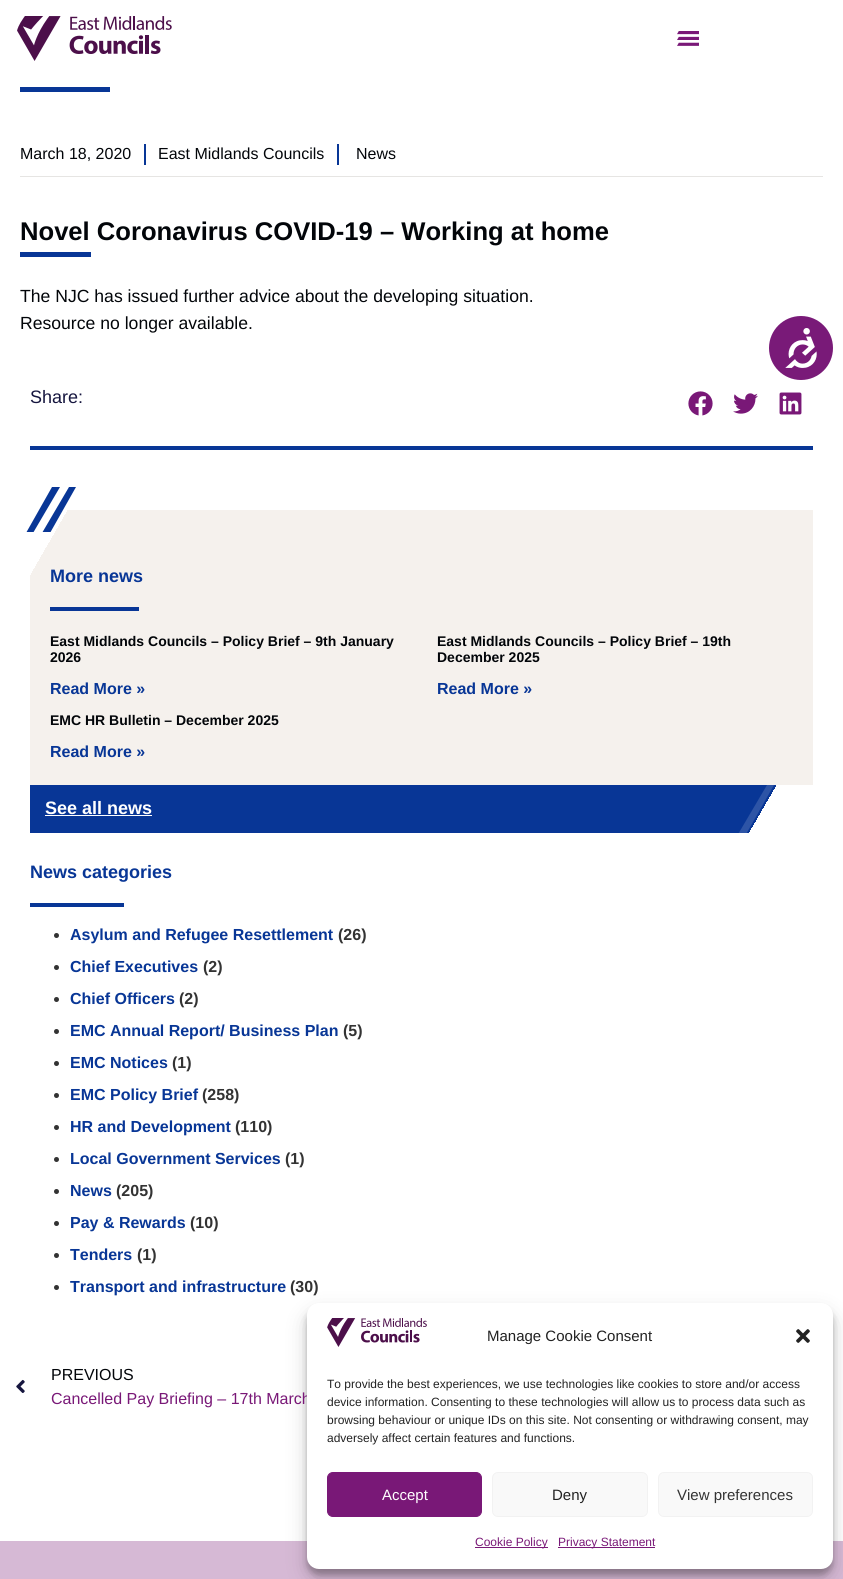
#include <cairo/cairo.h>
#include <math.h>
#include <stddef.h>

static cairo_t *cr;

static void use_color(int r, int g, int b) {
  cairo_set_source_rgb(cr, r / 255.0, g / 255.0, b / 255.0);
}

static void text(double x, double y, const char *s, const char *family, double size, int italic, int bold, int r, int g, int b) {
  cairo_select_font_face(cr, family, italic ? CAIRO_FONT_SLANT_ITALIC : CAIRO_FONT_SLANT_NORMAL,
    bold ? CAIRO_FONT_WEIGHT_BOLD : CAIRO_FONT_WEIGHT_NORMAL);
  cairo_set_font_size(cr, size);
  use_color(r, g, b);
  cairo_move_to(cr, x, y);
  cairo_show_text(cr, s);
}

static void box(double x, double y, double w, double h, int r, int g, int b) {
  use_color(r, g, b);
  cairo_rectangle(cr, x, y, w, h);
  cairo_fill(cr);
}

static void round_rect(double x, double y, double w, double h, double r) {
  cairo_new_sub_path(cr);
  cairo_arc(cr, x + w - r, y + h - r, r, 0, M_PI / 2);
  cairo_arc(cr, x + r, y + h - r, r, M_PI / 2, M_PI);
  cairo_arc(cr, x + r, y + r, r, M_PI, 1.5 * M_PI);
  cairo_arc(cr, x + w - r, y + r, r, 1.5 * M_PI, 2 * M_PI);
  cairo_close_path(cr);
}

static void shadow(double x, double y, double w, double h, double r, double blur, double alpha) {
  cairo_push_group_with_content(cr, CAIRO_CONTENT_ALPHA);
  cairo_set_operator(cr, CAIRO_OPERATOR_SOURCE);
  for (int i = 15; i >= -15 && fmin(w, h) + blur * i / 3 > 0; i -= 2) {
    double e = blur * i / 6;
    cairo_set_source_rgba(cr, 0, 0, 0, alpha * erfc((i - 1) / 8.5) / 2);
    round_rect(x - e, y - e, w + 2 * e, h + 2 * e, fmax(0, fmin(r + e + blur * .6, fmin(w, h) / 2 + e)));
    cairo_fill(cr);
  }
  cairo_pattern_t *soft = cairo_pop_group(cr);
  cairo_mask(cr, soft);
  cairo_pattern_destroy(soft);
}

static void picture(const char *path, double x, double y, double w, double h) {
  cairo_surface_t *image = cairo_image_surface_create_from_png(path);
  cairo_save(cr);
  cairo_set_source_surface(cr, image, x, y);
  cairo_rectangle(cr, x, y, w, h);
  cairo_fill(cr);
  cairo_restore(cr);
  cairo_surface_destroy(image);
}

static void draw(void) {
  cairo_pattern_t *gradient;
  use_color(255, 255, 255);
  cairo_paint(cr);
  picture("img_01.png", 17, 16, 155, 45);
  picture("img_02.png", 677, 31, 22, 15);
  box(20, 87, 90, 5, 8, 54, 150);
  box(20, 176, 803, 1, 230, 229, 227);
  box(144, 144, 2, 21, 8, 54, 150);
  box(337, 144, 2, 21, 8, 54, 150);
  box(20, 252, 71, 5, 8, 54, 150);
  box(30, 446, 783, 4, 8, 54, 150);
  picture("img_03.png", 688, 391, 25, 25);
  picture("img_04.png", 733, 393, 25, 21);
  picture("img_05.png", 779, 392, 23, 23);
  gradient = cairo_pattern_create_linear(775, 851, 68, 444);
  cairo_pattern_add_color_stop_rgba(gradient, 0.96, 0.961, 0.945, 0.929, 1);
  cairo_pattern_add_color_stop_rgba(gradient, 0.96, 1, 1, 1, 1);
  cairo_pattern_add_color_stop_rgba(gradient, 1, 1, 1, 1, 1);
  cairo_set_source(cr, gradient);
  cairo_pattern_destroy(gradient);
  cairo_rectangle(cr, 30, 510, 783, 275);
  cairo_fill(cr);
  cairo_save(cr);
  cairo_rectangle(cr, 26, 487, 50, 45);
  cairo_clip(cr);
  use_color(8, 54, 150);
  cairo_new_path(cr);
  cairo_move_to(cr, 52, 487);
  cairo_line_to(cr, 26, 533);
  cairo_line_to(cr, 33, 533);
  cairo_line_to(cr, 60, 487);
  cairo_close_path(cr);
  cairo_fill(cr);
  cairo_new_path(cr);
  cairo_move_to(cr, 69, 487);
  cairo_line_to(cr, 42, 533);
  cairo_line_to(cr, 50, 533);
  cairo_line_to(cr, 76, 487);
  cairo_close_path(cr);
  cairo_fill(cr);
  cairo_restore(cr);
  box(50, 607, 89, 4, 8, 54, 150);
  gradient = cairo_pattern_create_linear(117, 633, 726, 985);
  cairo_pattern_add_color_stop_rgba(gradient, 0.92, 0.031, 0.212, 0.588, 1);
  cairo_pattern_add_color_stop_rgba(gradient, 0.92, 1, 1, 1, 1);
  cairo_pattern_add_color_stop_rgba(gradient, 1, 1, 1, 1, 1);
  cairo_set_source(cr, gradient);
  cairo_pattern_destroy(gradient);
  cairo_rectangle(cr, 30, 785, 746, 48);
  cairo_fill(cr);
  box(45, 815, 107, 1, 255, 255, 255);
  cairo_set_source_rgba(cr, 1, 1, 1, 0.15);
  cairo_new_path(cr);
  cairo_move_to(cr, 774, 785);
  cairo_line_to(cr, 767, 785);
  cairo_line_to(cr, 737, 836);
  cairo_line_to(cr, 745, 836);
  cairo_close_path(cr);
  cairo_fill(cr);
  box(30, 903, 94, 4, 8, 54, 150);
  use_color(51, 51, 51);
  cairo_arc(cr, 56.5, 935.5, 2.5, 0, 2 * M_PI);
  cairo_fill(cr);
  cairo_arc(cr, 56.5, 967.5, 2.5, 0, 2 * M_PI);
  cairo_fill(cr);
  cairo_arc(cr, 56.5, 999.5, 2.5, 0, 2 * M_PI);
  cairo_fill(cr);
  cairo_arc(cr, 56.5, 1031.5, 2.5, 0, 2 * M_PI);
  cairo_fill(cr);
  cairo_arc(cr, 56.5, 1063.5, 2.5, 0, 2 * M_PI);
  cairo_fill(cr);
  cairo_arc(cr, 56.5, 1095.5, 2.5, 0, 2 * M_PI);
  cairo_fill(cr);
  cairo_arc(cr, 56.5, 1127.5, 2.5, 0, 2 * M_PI);
  cairo_fill(cr);
  cairo_arc(cr, 56.5, 1159.5, 2.5, 0, 2 * M_PI);
  cairo_fill(cr);
  cairo_arc(cr, 56.5, 1191.5, 2.5, 0, 2 * M_PI);
  cairo_fill(cr);
  cairo_arc(cr, 56.5, 1223.5, 2.5, 0, 2 * M_PI);
  cairo_fill(cr);
  cairo_arc(cr, 56.5, 1255.5, 2.5, 0, 2 * M_PI);
  cairo_fill(cr);
  cairo_arc(cr, 56.5, 1287.5, 2.5, 0, 2 * M_PI);
  cairo_fill(cr);
  picture("img_06.png", 16, 1379, 9, 14);
  use_color(121, 26, 120);
  cairo_arc(cr, 801, 348, 32, 0, 2 * M_PI);
  cairo_fill(cr);
  picture("img_07.png", 785, 328, 32, 40);
  box(0, 1541, 843, 38, 214, 185, 213);
  use_color(0, 0, 0);
  shadow(307, 1309, 526, 266, 12, 3, 0.23);
  shadow(307, 1313, 526, 266, 12, 10, 0.19);
  text(20, 159, "March 18, 2020", "Liberation Sans", 16, 0, 0, 2, 5, 9);
  text(158, 159, "East Midlands Councils", "Liberation Sans", 16, 0, 0, 2, 5, 9);
  text(356, 159, "News", "Liberation Sans", 16, 0, 0, 2, 5, 9);
  text(20, 240, "Novel Coronavirus COVID-19 – Working at home", "Liberation Sans", 25.6, 0, 1, 2, 5, 9);
  text(20, 302, "The NJC has issued further advice about the developing situation.", "Liberation Sans", 17.6, 0, 0, 2, 5, 9);
  text(20, 329, "Resource no longer available.", "Liberation Sans", 17.6, 0, 0, 2, 5, 9);
  text(30, 403, "Share:", "Liberation Sans", 18, 0, 0, 22, 22, 63);
  text(50, 582, "More news", "Liberation Sans", 18, 0, 1, 8, 54, 150);
  text(50, 646, "East Midlands Councils – Policy Brief – 9th January", "Liberation Sans", 14, 0, 1, 2, 5, 9);
  text(50, 662, "2026", "Liberation Sans", 14, 0, 1, 2, 5, 9);
  text(50, 694, "Read More »", "Liberation Sans", 16, 0, 1, 8, 54, 150);
  text(437, 646, "East Midlands Councils – Policy Brief – 19th", "Liberation Sans", 14, 0, 1, 2, 5, 9);
  text(437, 662, "December 2025", "Liberation Sans", 14, 0, 1, 2, 5, 9);
  text(437, 694, "Read More »", "Liberation Sans", 16, 0, 1, 8, 54, 150);
  text(50, 725, "EMC HR Bulletin – December 2025", "Liberation Sans", 14, 0, 1, 2, 5, 9);
  text(50, 757, "Read More »", "Liberation Sans", 16, 0, 1, 8, 54, 150);
  text(45, 814, "See all news", "Liberation Sans", 18, 0, 1, 255, 255, 255);
  text(30, 878, "News categories", "Liberation Sans", 18, 0, 1, 8, 54, 150);
  text(70, 940, "Asylum and Refugee Resettlement", "Liberation Sans", 16, 0, 1, 8, 54, 150);
  text(338, 940, "(26)", "Liberation Sans", 16, 0, 1, 51, 51, 51);
  text(70, 972, "Chief Executives", "Liberation Sans", 16, 0, 1, 8, 54, 150);
  text(203, 972, "(2)", "Liberation Sans", 16, 0, 1, 51, 51, 51);
  text(70, 1004, "Chief Officers", "Liberation Sans", 16, 0, 1, 8, 54, 150);
  text(179, 1004, "(2)", "Liberation Sans", 16, 0, 1, 51, 51, 51);
  text(70, 1036, "EMC Annual Report/ Business Plan", "Liberation Sans", 16, 0, 1, 8, 54, 150);
  text(343, 1036, "(5)", "Liberation Sans", 16, 0, 1, 51, 51, 51);
  text(70, 1068, "EMC Notices", "Liberation Sans", 16, 0, 1, 8, 54, 150);
  text(172, 1068, "(1)", "Liberation Sans", 16, 0, 1, 51, 51, 51);
  text(70, 1100, "EMC Policy Brief", "Liberation Sans", 16, 0, 1, 8, 54, 150);
  text(202, 1100, "(258)", "Liberation Sans", 16, 0, 1, 51, 51, 51);
  text(70, 1132, "HR and Development", "Liberation Sans", 16, 0, 1, 8, 54, 150);
  text(235, 1132, "(110)", "Liberation Sans", 16, 0, 1, 51, 51, 51);
  text(70, 1164, "Local Government Services", "Liberation Sans", 16, 0, 1, 8, 54, 150);
  text(285, 1164, "(1)", "Liberation Sans", 16, 0, 1, 51, 51, 51);
  text(70, 1196, "News", "Liberation Sans", 16, 0, 1, 8, 54, 150);
  text(116, 1196, "(205)", "Liberation Sans", 16, 0, 1, 51, 51, 51);
  text(70, 1228, "Pay & Rewards", "Liberation Sans", 16, 0, 1, 8, 54, 150);
  text(190, 1228, "(10)", "Liberation Sans", 16, 0, 1, 51, 51, 51);
  text(70, 1260, "Tenders", "Liberation Sans", 16, 0, 1, 8, 54, 150);
  text(137, 1260, "(1)", "Liberation Sans", 16, 0, 1, 51, 51, 51);
  text(70, 1292, "Transport and infrastructure", "Liberation Sans", 16, 0, 1, 8, 54, 150);
  text(290, 1292, "(30)", "Liberation Sans", 16, 0, 1, 51, 51, 51);
  text(51, 1380, "PREVIOUS", "Liberation Sans", 16, 0, 0, 2, 5, 9);
  text(51, 1404, "Cancelled Pay Briefing – 17th March", "Liberation Sans", 16, 0, 0, 121, 24, 119);
  use_color(255, 255, 255);
  round_rect(307, 1303, 526, 266, 12);
  cairo_fill(cr);
  picture("img_08.png", 327, 1318, 100, 29);
  text(487, 1341, "Manage Cookie Consent", "Liberation Sans", 15, 0, 0, 34, 34, 34);
  picture("img_09.png", 796, 1329, 14, 14);
  text(327, 1388, "To provide the best experiences, we use technologies like cookies to store and/or access", "Liberation Sans", 12, 0, 0, 34, 34, 34);
  text(327, 1406, "device information. Consenting to these technologies will allow us to process data such as", "Liberation Sans", 12, 0, 0, 34, 34, 34);
  text(327, 1424, "browsing behaviour or unique IDs on this site. Not consenting or withdrawing consent, may", "Liberation Sans", 12, 0, 0, 34, 34, 34);
  text(327, 1442, "adversely affect certain features and functions.", "Liberation Sans", 12, 0, 0, 34, 34, 34);
  use_color(121, 24, 119);
  round_rect(327.5, 1472.5, 154, 44, 5.5);
  cairo_fill_preserve(cr);
  cairo_set_line_width(cr, 1);
  cairo_stroke(cr);
  text(382, 1500, "Accept", "Liberation Sans", 15, 0, 0, 255, 255, 255);
  use_color(249, 249, 249);
  round_rect(492.5, 1472.5, 155, 44, 5.5);
  cairo_fill_preserve(cr);
  use_color(242, 242, 242);
  cairo_stroke(cr);
  text(552, 1500, "Deny", "Liberation Sans", 15, 0, 0, 34, 34, 34);
  use_color(249, 249, 249);
  round_rect(658.5, 1472.5, 154, 44, 5.5);
  cairo_fill_preserve(cr);
  use_color(242, 242, 242);
  cairo_stroke(cr);
  text(677, 1500, "View preferences", "Liberation Sans", 15, 0, 0, 51, 51, 51);
  box(475, 1547, 73, 1, 121, 24, 119);
  text(475, 1546, "Cookie Policy", "Liberation Sans", 12, 0, 0, 121, 24, 119);
  box(558, 1547, 97, 1, 121, 24, 119);
  text(558, 1546, "Privacy Statement", "Liberation Sans", 12, 0, 0, 121, 24, 119);
}

int main(void) {
  cairo_surface_t *surface = cairo_image_surface_create(CAIRO_FORMAT_RGB24, 843, 1579);
  cr = cairo_create(surface);
  cairo_font_options_t *options = cairo_font_options_create();
  cairo_font_options_set_hint_metrics(options, CAIRO_HINT_METRICS_OFF);
  cairo_font_options_set_hint_style(options, CAIRO_HINT_STYLE_NONE);
  cairo_set_font_options(cr, options);
  cairo_set_miter_limit(cr, 4);
  draw();
  cairo_surface_write_to_png(surface, "out.png");
  cairo_font_options_destroy(options);
  cairo_destroy(cr);
  cairo_surface_destroy(surface);
  return 0;
}
